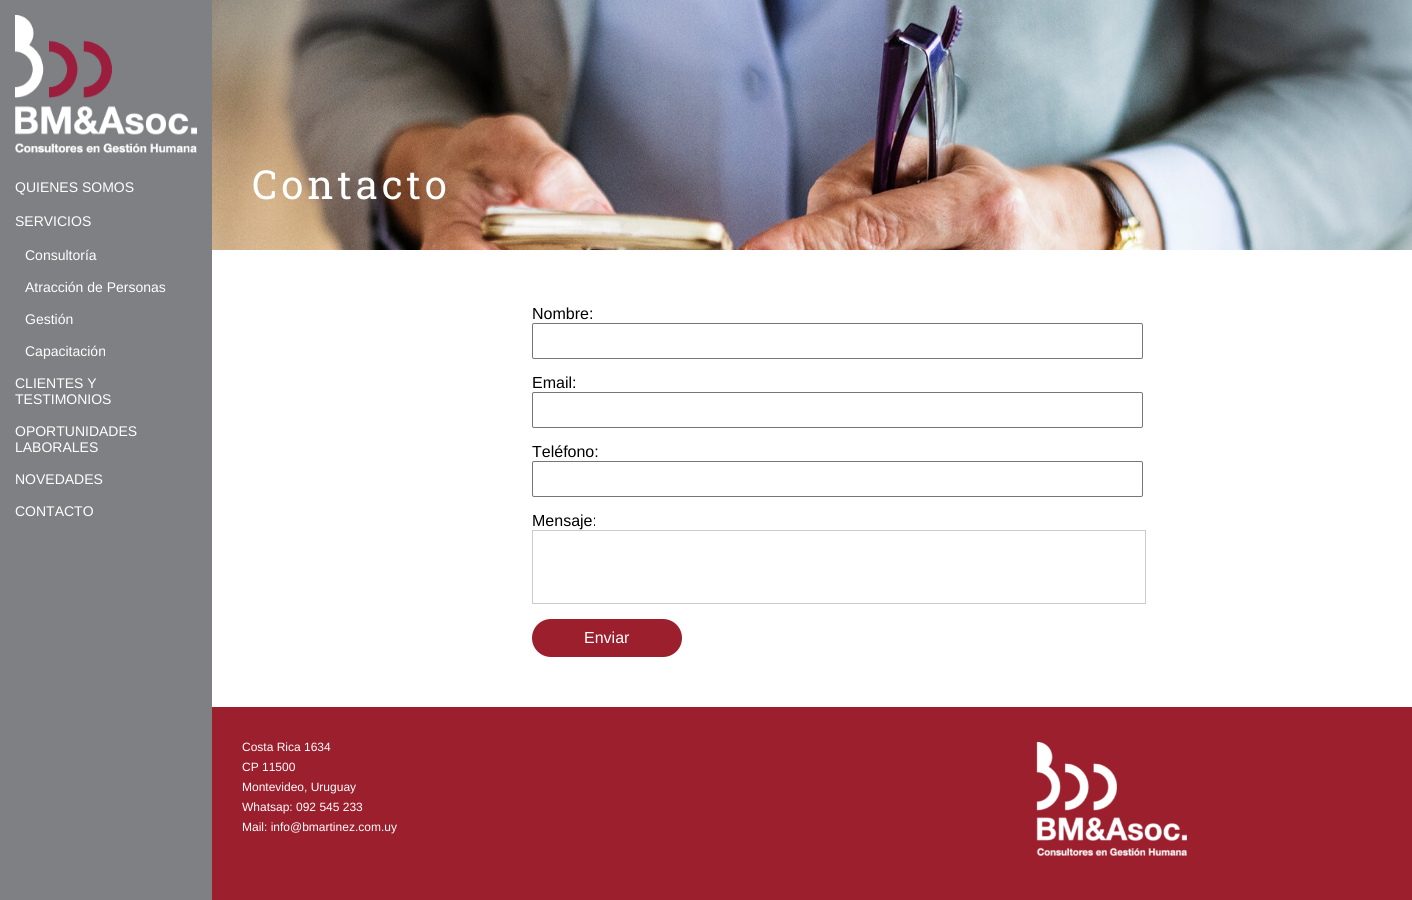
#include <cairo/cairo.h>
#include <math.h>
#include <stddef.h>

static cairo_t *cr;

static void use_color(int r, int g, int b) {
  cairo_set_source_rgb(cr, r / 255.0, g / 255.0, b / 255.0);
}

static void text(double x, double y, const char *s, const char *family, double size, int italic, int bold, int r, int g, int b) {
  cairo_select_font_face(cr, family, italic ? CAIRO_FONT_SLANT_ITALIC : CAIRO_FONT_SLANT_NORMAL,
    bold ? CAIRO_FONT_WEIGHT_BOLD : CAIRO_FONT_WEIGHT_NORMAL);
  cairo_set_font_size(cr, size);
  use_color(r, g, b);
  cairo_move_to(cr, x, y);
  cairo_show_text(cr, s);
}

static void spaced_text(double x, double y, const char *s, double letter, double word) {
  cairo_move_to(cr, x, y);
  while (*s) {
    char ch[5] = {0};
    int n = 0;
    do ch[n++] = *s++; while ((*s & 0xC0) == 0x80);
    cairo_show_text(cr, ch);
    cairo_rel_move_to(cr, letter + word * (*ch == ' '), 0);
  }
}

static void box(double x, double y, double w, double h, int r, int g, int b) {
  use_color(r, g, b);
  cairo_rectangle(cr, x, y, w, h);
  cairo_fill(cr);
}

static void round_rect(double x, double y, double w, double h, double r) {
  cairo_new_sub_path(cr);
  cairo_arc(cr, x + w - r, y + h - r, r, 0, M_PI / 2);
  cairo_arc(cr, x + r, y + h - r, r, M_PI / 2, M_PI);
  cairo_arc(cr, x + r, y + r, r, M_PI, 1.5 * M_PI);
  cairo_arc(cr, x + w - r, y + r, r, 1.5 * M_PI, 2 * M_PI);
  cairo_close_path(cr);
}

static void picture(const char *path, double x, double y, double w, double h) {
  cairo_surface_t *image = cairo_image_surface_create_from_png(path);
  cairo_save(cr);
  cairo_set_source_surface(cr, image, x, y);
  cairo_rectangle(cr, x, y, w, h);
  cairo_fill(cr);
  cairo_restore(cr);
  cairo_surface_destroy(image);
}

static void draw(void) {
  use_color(255, 255, 255);
  cairo_paint(cr);
  box(0, 0, 212, 900, 127, 128, 131);
  picture("img_01.png", 15, 15, 182, 138);
  picture("img_02.png", 212, 0, 1200, 250);
  round_rect(532.5, 323.5, 610, 35, 1.5);
  use_color(118, 118, 118);
  cairo_set_line_width(cr, 1);
  cairo_stroke(cr);
  round_rect(532.5, 392.5, 610, 35, 1.5);
  cairo_stroke(cr);
  round_rect(532.5, 461.5, 610, 35, 1.5);
  cairo_stroke(cr);
  cairo_rectangle(cr, 532.5, 530.5, 613, 73);
  use_color(204, 204, 204);
  cairo_stroke(cr);
  use_color(156, 31, 46);
  round_rect(532, 619, 150, 38, 19);
  cairo_fill(cr);
  box(212, 707, 1200, 193, 156, 31, 46);
  picture("img_03.png", 1036, 742, 151, 114);
  text(15, 192, "QUIENES SOMOS", "Liberation Sans", 14, 0, 0, 255, 255, 255);
  text(15, 226, "SERVICIOS", "Liberation Sans", 14, 0, 0, 255, 255, 255);
  text(25, 260, "Consultoría", "Liberation Sans", 14, 0, 0, 255, 255, 255);
  text(25, 292, "Atracción de Personas", "Liberation Sans", 14, 0, 0, 255, 255, 255);
  text(25, 324, "Gestión", "Liberation Sans", 14, 0, 0, 255, 255, 255);
  text(25, 356, "Capacitación", "Liberation Sans", 14, 0, 0, 255, 255, 255);
  text(15, 388, "CLIENTES Y", "Liberation Sans", 14, 0, 0, 255, 255, 255);
  text(15, 404, "TESTIMONIOS", "Liberation Sans", 14, 0, 0, 255, 255, 255);
  text(15, 436, "OPORTUNIDADES", "Liberation Sans", 14, 0, 0, 255, 255, 255);
  text(15, 452, "LABORALES", "Liberation Sans", 14, 0, 0, 255, 255, 255);
  text(15, 484, "NOVEDADES", "Liberation Sans", 14, 0, 0, 255, 255, 255);
  text(15, 516, "CONTACTO", "Liberation Sans", 14, 0, 0, 255, 255, 255);
  cairo_select_font_face(cr, "Roboto Slab", CAIRO_FONT_SLANT_NORMAL, CAIRO_FONT_WEIGHT_NORMAL);
  cairo_set_font_size(cr, 40);
  spaced_text(252, 199, "Contacto", 4, 0);
  text(532, 319, "Nombre:", "Liberation Sans", 16, 0, 0, 0, 0, 0);
  text(532, 388, "Email:", "Liberation Sans", 16, 0, 0, 0, 0, 0);
  text(532, 457, "Teléfono:", "Liberation Sans", 16, 0, 0, 0, 0, 0);
  text(532, 526, "Mensaje:", "Liberation Sans", 16, 0, 0, 0, 0, 0);
  text(584, 643, "Enviar", "Liberation Sans", 16, 0, 0, 255, 255, 255);
  text(242, 751, "Costa Rica 1634", "Liberation Sans", 12, 0, 0, 255, 255, 255);
  text(242, 771, "CP 11500", "Liberation Sans", 12, 0, 0, 255, 255, 255);
  text(242, 791, "Montevideo, Uruguay", "Liberation Sans", 12, 0, 0, 255, 255, 255);
  text(242, 811, "Whatsap: 092 545 233", "Liberation Sans", 12, 0, 0, 255, 255, 255);
  text(242, 831, "Mail: info@bmartinez.com.uy", "Liberation Sans", 12, 0, 0, 255, 255, 255);
}

int main(void) {
  cairo_surface_t *surface = cairo_image_surface_create(CAIRO_FORMAT_RGB24, 1412, 900);
  cr = cairo_create(surface);
  cairo_font_options_t *options = cairo_font_options_create();
  cairo_font_options_set_hint_metrics(options, CAIRO_HINT_METRICS_OFF);
  cairo_font_options_set_hint_style(options, CAIRO_HINT_STYLE_NONE);
  cairo_set_font_options(cr, options);
  cairo_set_miter_limit(cr, 4);
  draw();
  cairo_surface_write_to_png(surface, "out.png");
  cairo_font_options_destroy(options);
  cairo_destroy(cr);
  cairo_surface_destroy(surface);
  return 0;
}
